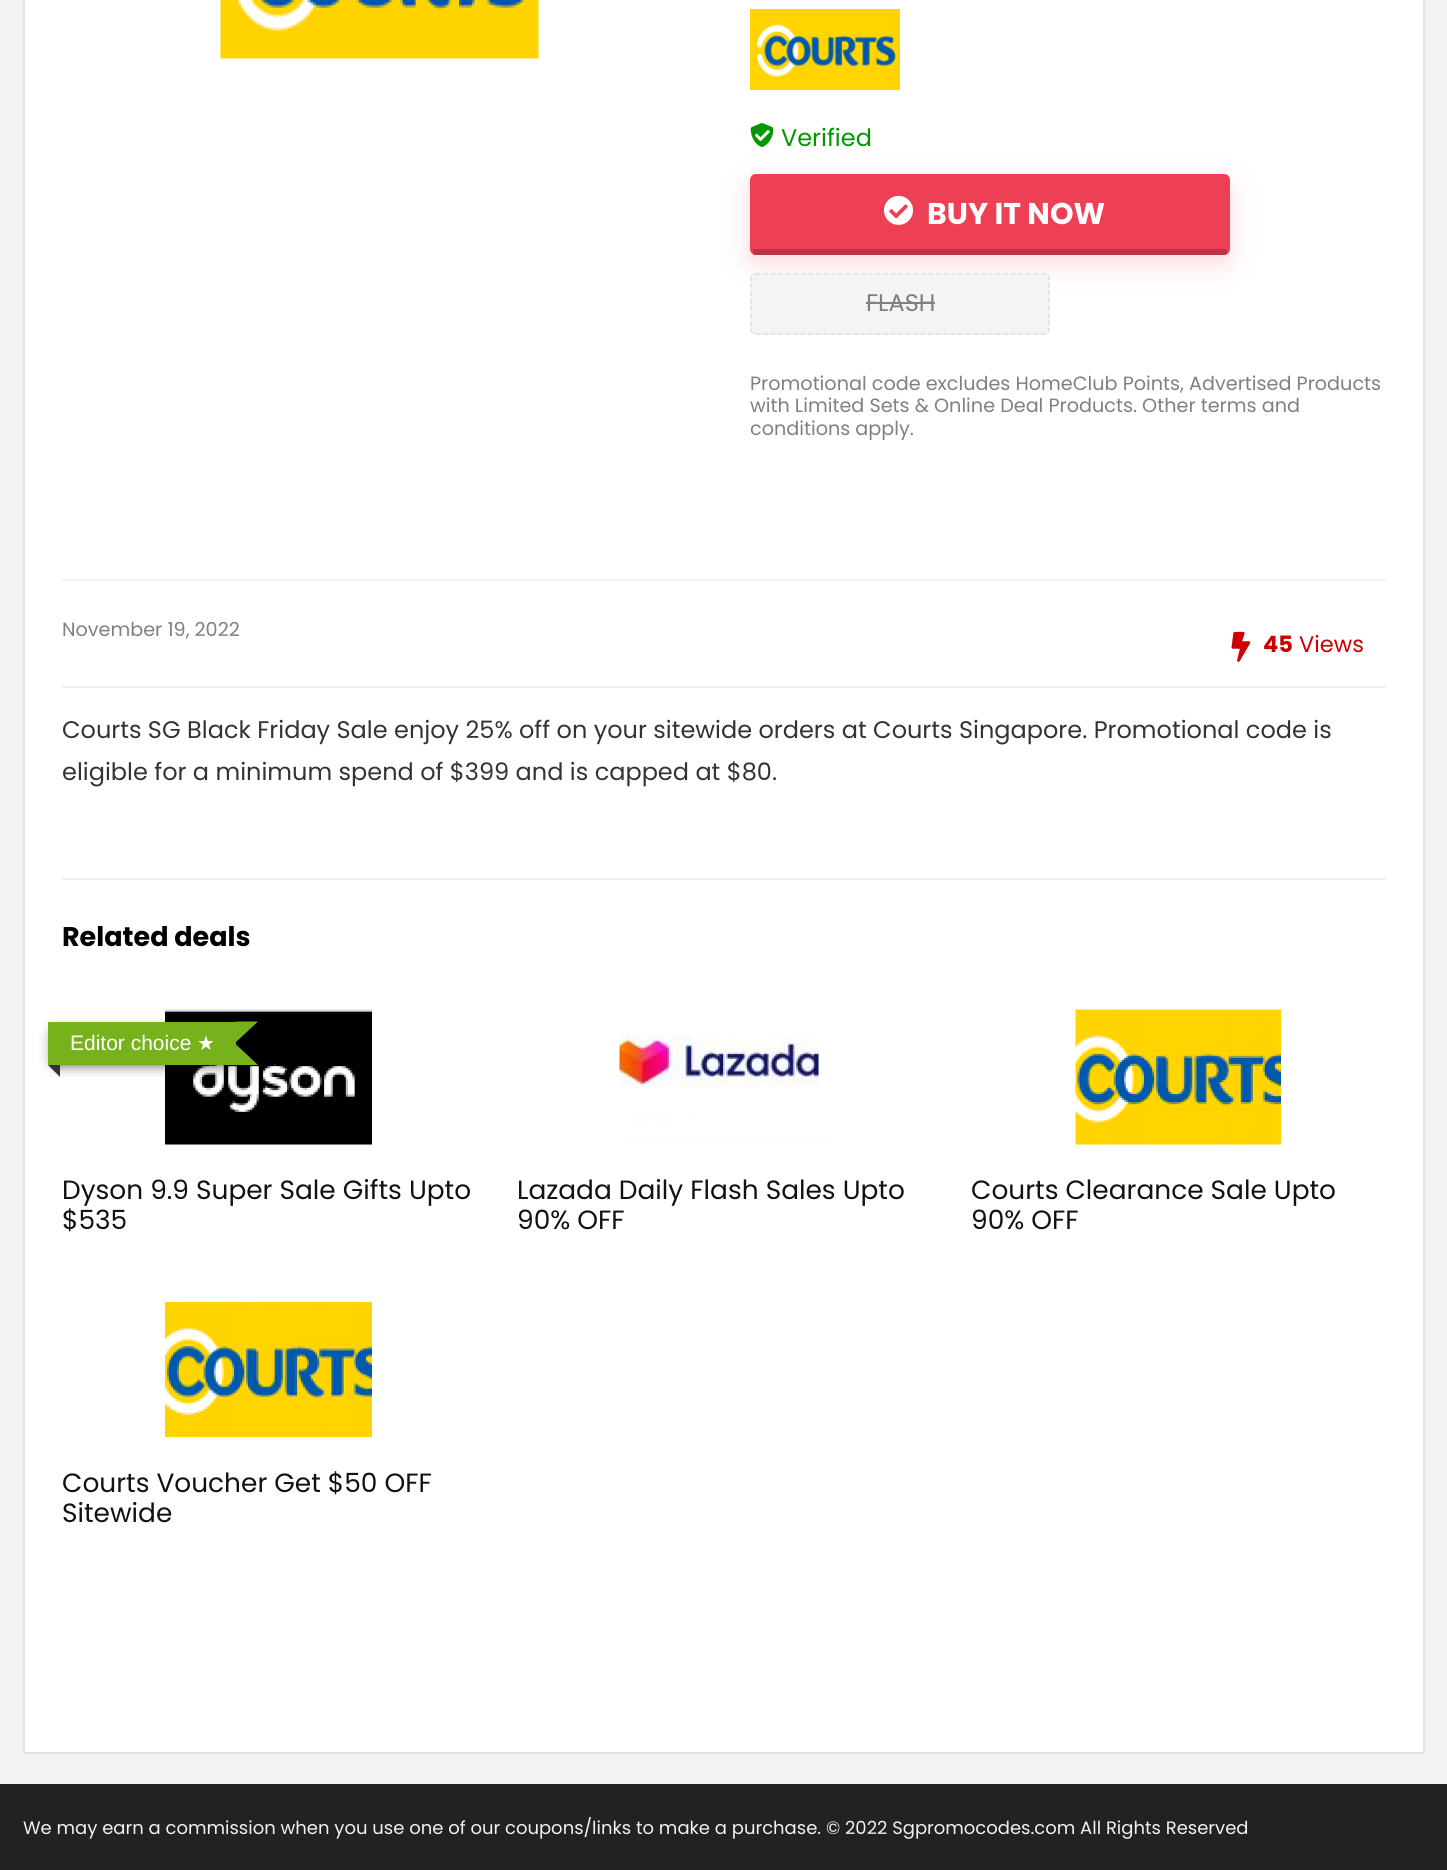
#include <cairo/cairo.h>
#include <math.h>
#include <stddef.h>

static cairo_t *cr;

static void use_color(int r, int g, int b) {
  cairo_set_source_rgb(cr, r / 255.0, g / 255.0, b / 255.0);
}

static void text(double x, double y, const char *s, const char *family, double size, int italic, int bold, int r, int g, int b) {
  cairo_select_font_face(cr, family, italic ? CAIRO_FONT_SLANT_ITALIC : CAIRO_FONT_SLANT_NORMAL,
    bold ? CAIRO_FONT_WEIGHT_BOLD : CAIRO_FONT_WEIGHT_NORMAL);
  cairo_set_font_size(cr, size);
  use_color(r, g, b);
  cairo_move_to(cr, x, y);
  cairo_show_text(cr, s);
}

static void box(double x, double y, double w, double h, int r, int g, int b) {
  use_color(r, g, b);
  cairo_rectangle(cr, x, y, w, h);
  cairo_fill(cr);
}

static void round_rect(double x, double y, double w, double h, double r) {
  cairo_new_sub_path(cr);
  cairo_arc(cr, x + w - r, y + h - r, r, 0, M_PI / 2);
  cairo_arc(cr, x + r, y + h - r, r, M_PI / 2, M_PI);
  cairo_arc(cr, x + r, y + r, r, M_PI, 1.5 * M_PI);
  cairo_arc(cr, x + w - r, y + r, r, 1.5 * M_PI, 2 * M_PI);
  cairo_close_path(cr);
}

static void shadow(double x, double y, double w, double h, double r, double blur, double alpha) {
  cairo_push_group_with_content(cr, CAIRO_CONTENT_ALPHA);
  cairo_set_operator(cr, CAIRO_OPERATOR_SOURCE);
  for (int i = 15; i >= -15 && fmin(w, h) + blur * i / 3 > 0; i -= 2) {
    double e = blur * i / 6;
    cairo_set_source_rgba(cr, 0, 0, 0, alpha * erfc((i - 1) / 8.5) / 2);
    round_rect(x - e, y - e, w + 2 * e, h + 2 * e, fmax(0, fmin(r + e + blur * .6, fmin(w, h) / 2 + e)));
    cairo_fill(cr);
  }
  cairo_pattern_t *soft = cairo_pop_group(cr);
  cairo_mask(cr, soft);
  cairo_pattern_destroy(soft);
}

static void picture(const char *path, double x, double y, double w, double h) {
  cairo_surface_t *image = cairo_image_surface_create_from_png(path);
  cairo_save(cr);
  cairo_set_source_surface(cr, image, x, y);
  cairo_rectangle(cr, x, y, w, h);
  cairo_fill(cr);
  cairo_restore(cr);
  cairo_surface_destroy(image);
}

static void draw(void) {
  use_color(242, 242, 242);
  cairo_paint(cr);
  use_color(255, 255, 255);
  cairo_rectangle(cr, 24, -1, 1400, 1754);
  cairo_fill_preserve(cr);
  use_color(227, 227, 227);
  cairo_stroke(cr);
  box(62, 579, 1324, 2, 240, 240, 240);
  picture("img_01.png", 220, 0, 319, 59);
  picture("img_02.png", 750, 9, 150, 81);
  picture("img_03.png", 750, 123, 24, 24);
  use_color(238, 64, 84);
  shadow(749, 183, 480, 81, 6, 14, 0.2);
  use_color(238, 64, 84);
  round_rect(750, 174, 480, 81, 6);
  cairo_fill(cr);
  cairo_set_source_rgba(cr, 0, 0, 0, 0.2);
  cairo_rectangle(cr, 753, 249, 474, 6);
  cairo_fill(cr);
  picture("img_04.png", 884, 195, 29, 30);
  use_color(244, 244, 244);
  round_rect(750, 273, 300, 62, 6);
  cairo_fill(cr);
  cairo_new_path(cr);
  cairo_move_to(cr, 756, 274);
  cairo_line_to(cr, 1044, 274);
  cairo_curve_to(cr, 1047, 274, 1049, 276, 1049, 279);
  cairo_line_to(cr, 1049, 328.5);
  cairo_curve_to(cr, 1049, 331.5, 1047, 334, 1044, 334);
  cairo_line_to(cr, 756, 334);
  cairo_curve_to(cr, 753, 334, 751, 331.5, 751, 328.5);
  cairo_line_to(cr, 751, 279);
  cairo_curve_to(cr, 751, 276, 753, 274, 756, 274);
  cairo_close_path(cr);
  use_color(221, 221, 221);
  cairo_set_line_width(cr, 1.5);
  cairo_set_dash(cr, (double[]){4.5, 3}, 2, 0);
  cairo_stroke(cr);
  box(866, 302, 69, 2, 128, 128, 128);
  box(62, 686, 1324, 2, 240, 240, 240);
  picture("img_05.png", 1231, 631, 20, 31);
  box(62, 878, 1324, 2, 240, 240, 240);
  picture("img_06.png", 165, 1009, 207, 136);
  use_color(0, 0, 0);
  shadow(56, 1034, 172, 28, 0, 7.5, 1);
  box(48, 1022, 188, 43, 119, 178, 29);
  use_color(51, 51, 51);
  cairo_new_path(cr);
  cairo_move_to(cr, 60, 1065);
  cairo_line_to(cr, 60, 1077);
  cairo_line_to(cr, 48, 1065);
  cairo_close_path(cr);
  cairo_fill(cr);
  use_color(119, 178, 29);
  cairo_new_path(cr);
  cairo_move_to(cr, 235.5, 1021.5);
  cairo_line_to(cr, 258, 1021.5);
  cairo_line_to(cr, 235.5, 1042.5);
  cairo_close_path(cr);
  cairo_fill(cr);
  cairo_new_path(cr);
  cairo_move_to(cr, 258, 1065);
  cairo_line_to(cr, 235.5, 1065);
  cairo_line_to(cr, 235.5, 1044);
  cairo_close_path(cr);
  cairo_fill(cr);
  picture("img_07.png", 619, 1032, 208, 112);
  picture("img_08.png", 1075, 1009, 206, 136);
  picture("img_09.png", 165, 1302, 207, 135);
  box(0, 1784, 1447, 86, 34, 34, 34);
  text(781, 146, "Verified", "Poppins", 24, 0, 0, 0, 151, 0);
  text(927, 224, "BUY IT NOW", "Poppins", 30, 0, 1, 255, 255, 255);
  text(866, 311, "FLASH", "Poppins", 24, 0, 0, 128, 128, 128);
  text(750, 390, "Promotional code excludes HomeClub Points, Advertised Products", "Poppins", 19.2, 0, 0, 128, 128, 128);
  text(750, 412, "with Limited Sets & Online Deal Products. Other terms and", "Poppins", 19.2, 0, 0, 128, 128, 128);
  text(750, 435, "conditions apply.", "Poppins", 19.2, 0, 0, 128, 128, 128);
  text(62, 636, "November 19, 2022", "Poppins", 19.2, 0, 0, 128, 128, 128);
  text(1263, 652, "45", "Poppins", 22.5, 0, 1, 204, 0, 0);
  text(1299, 652, "Views", "Poppins", 22.5, 0, 0, 204, 0, 0);
  text(62, 738, "Courts SG Black Friday Sale enjoy 25% off on your sitewide orders at Courts Singapore. Promotional code is", "Poppins", 24, 0, 0, 51, 51, 51);
  text(62, 780, "eligible for a minimum spend of $399 and is capped at $80.", "Poppins", 24, 0, 0, 51, 51, 51);
  text(62, 946, "Related deals", "Poppins", 27, 0, 1, 0, 0, 0);
  text(70, 1050, "Editor choice", "Liberation Sans", 21, 0, 0, 255, 255, 255);
  text(197, 1050, "★", "DejaVu Sans", 20, 0, 0, 255, 255, 255);
  text(62, 1199, "Dyson 9.9 Super Sale Gifts Upto", "Poppins", 26.4, 0, 0, 17, 17, 17);
  text(62, 1229, "$535", "Poppins", 26.4, 0, 0, 17, 17, 17);
  text(517, 1199, "Lazada Daily Flash Sales Upto", "Poppins", 26.4, 0, 0, 17, 17, 17);
  text(517, 1229, "90% OFF", "Poppins", 26.4, 0, 0, 17, 17, 17);
  text(971, 1199, "Courts Clearance Sale Upto", "Poppins", 26.4, 0, 0, 17, 17, 17);
  text(971, 1229, "90% OFF", "Poppins", 26.4, 0, 0, 17, 17, 17);
  text(62, 1492, "Courts Voucher Get $50 OFF", "Poppins", 26.4, 0, 0, 17, 17, 17);
  text(62, 1522, "Sitewide", "Poppins", 26.4, 0, 0, 17, 17, 17);
  text(23, 1834, "We may earn a commission when you use one of our coupons/links to make a purchase. © 2022 Sgpromocodes.com All Rights Reserved", "Poppins", 18, 0, 0, 241, 241, 241);
}

int main(void) {
  cairo_surface_t *surface = cairo_image_surface_create(CAIRO_FORMAT_RGB24, 1447, 1870);
  cr = cairo_create(surface);
  cairo_font_options_t *options = cairo_font_options_create();
  cairo_font_options_set_hint_metrics(options, CAIRO_HINT_METRICS_OFF);
  cairo_font_options_set_hint_style(options, CAIRO_HINT_STYLE_NONE);
  cairo_set_font_options(cr, options);
  cairo_set_miter_limit(cr, 4);
  draw();
  cairo_surface_write_to_png(surface, "out.png");
  cairo_font_options_destroy(options);
  cairo_destroy(cr);
  cairo_surface_destroy(surface);
  return 0;
}
